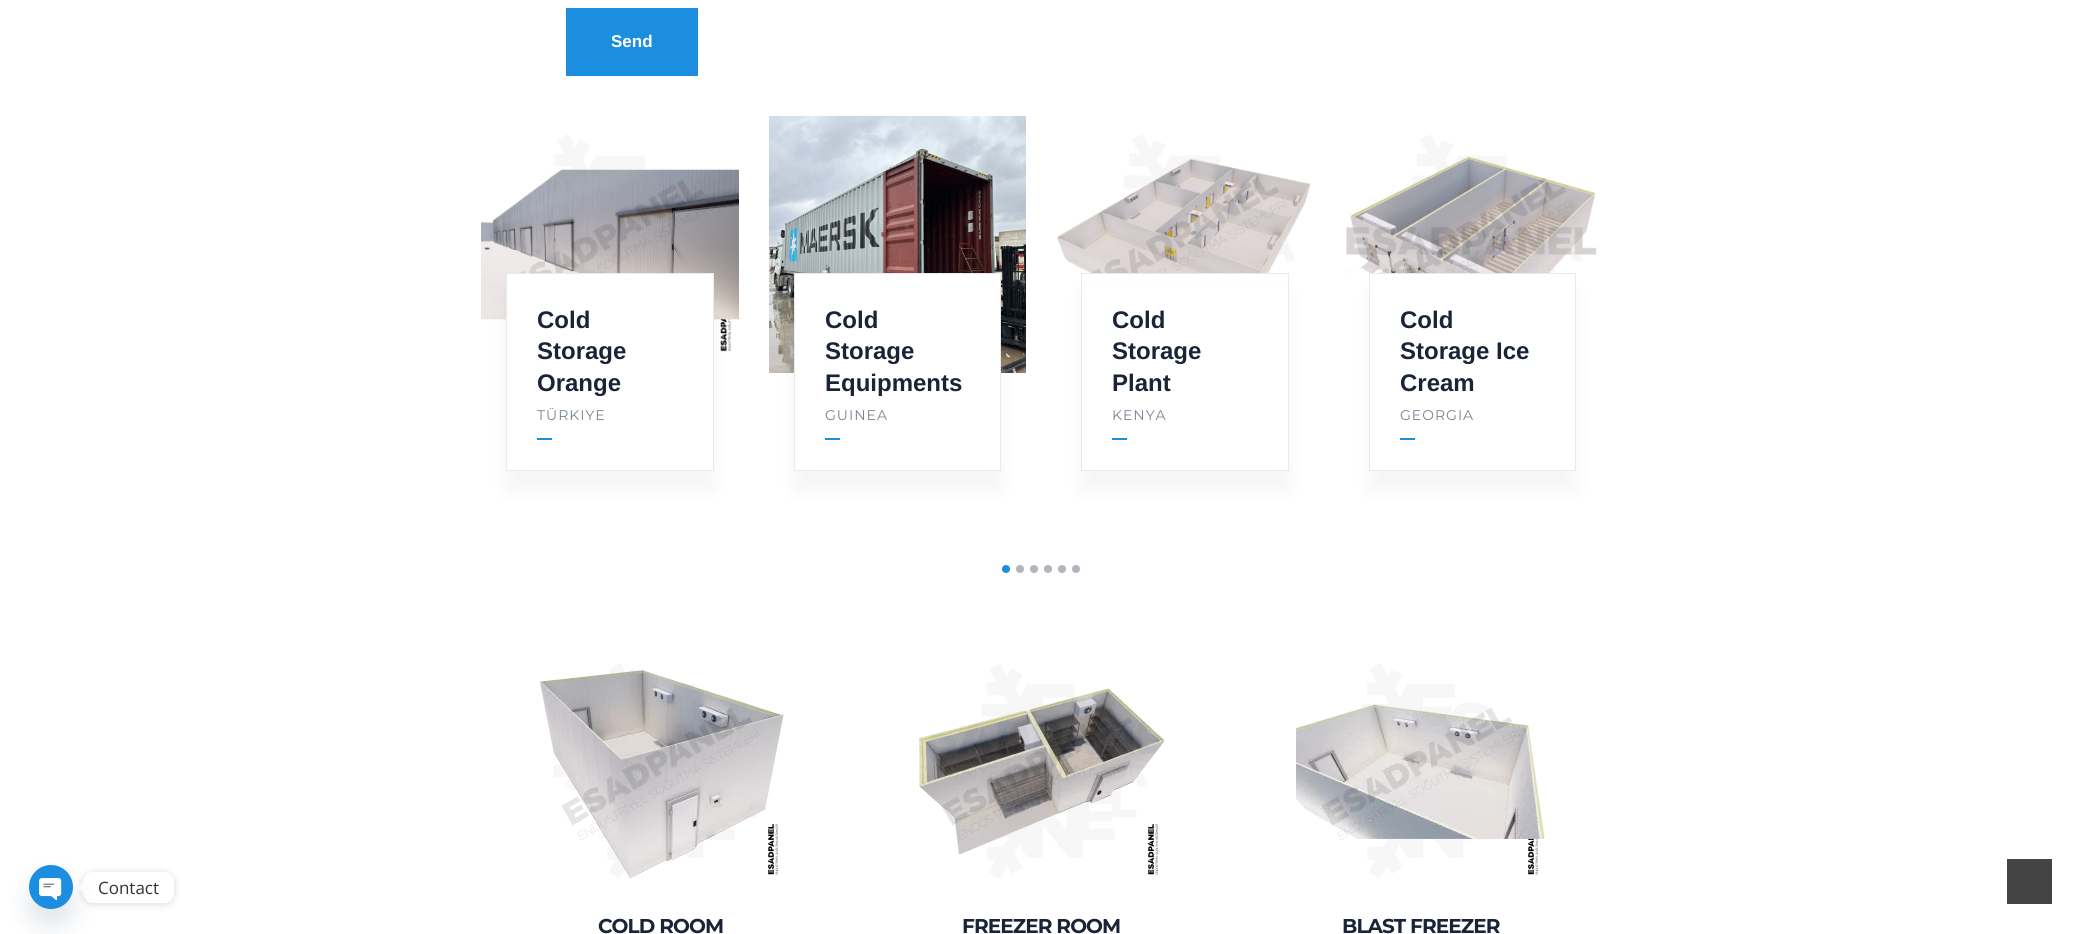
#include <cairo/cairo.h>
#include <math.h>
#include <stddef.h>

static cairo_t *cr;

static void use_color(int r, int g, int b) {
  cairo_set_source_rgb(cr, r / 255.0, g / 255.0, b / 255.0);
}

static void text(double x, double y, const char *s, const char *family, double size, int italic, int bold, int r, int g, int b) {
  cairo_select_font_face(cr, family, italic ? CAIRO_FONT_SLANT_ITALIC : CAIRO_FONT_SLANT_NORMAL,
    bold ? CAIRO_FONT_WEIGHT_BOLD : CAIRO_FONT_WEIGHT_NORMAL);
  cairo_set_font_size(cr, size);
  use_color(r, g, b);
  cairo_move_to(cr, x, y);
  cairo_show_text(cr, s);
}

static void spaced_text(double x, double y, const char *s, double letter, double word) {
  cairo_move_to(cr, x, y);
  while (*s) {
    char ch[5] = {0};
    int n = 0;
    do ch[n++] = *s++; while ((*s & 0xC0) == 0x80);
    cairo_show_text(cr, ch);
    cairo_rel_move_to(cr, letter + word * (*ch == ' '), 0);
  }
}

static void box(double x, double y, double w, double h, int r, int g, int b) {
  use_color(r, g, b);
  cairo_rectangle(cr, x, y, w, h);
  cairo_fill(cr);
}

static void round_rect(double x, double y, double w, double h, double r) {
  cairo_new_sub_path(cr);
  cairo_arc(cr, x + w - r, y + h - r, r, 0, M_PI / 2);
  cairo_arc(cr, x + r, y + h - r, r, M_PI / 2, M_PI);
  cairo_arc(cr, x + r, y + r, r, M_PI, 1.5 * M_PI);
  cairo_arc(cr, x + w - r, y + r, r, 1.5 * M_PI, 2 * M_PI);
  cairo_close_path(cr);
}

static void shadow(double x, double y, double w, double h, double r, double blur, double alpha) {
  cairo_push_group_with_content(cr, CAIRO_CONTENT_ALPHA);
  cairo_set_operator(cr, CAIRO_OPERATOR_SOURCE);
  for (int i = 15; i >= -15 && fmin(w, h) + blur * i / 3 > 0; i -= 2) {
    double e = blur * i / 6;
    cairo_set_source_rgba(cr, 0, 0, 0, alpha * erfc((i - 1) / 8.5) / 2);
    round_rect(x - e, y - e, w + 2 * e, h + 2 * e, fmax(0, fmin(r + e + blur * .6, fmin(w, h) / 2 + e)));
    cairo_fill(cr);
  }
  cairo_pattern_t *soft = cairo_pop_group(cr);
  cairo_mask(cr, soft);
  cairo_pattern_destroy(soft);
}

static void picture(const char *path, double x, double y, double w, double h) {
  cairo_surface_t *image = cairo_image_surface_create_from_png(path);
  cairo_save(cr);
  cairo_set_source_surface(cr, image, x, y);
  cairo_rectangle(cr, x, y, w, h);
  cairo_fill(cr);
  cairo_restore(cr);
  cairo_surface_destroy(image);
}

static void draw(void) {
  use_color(255, 255, 255);
  cairo_paint(cr);
  use_color(0, 0, 0);
  shadow(83, 873, 91, 31, 10, 4, 0.15);
  use_color(255, 255, 255);
  round_rect(83, 872, 91, 31, 10);
  cairo_fill(cr);
  cairo_new_path(cr);
  cairo_move_to(cr, 83, 882.5);
  cairo_line_to(cr, 83, 892.5);
  cairo_line_to(cr, 78, 887.5);
  cairo_close_path(cr);
  cairo_fill(cr);
  use_color(73, 104, 126);
  shadow(29, 881, 44, 44, 22, 12, 0.16);
  picture("img_01.png", 29, 865, 44, 44);
  box(566, 8, 132, 68, 27, 142, 224);
  picture("img_02.png", 481, 134, 258, 218);
  use_color(0, 0, 0);
  shadow(506, 293, 208, 198, 0, 10, 0.04);
  use_color(255, 255, 255);
  cairo_rectangle(cr, 506.5, 273.5, 207, 197);
  cairo_fill_preserve(cr);
  use_color(233, 233, 238);
  cairo_set_line_width(cr, 1);
  cairo_stroke(cr);
  box(537, 438, 15, 2, 27, 142, 224);
  picture("img_03.png", 769, 116, 257, 257);
  use_color(0, 0, 0);
  shadow(794, 293, 207, 198, 0, 10, 0.04);
  use_color(255, 255, 255);
  cairo_rectangle(cr, 794.5, 273.5, 206, 197);
  cairo_fill_preserve(cr);
  use_color(233, 233, 238);
  cairo_stroke(cr);
  box(825, 438, 15, 2, 27, 142, 224);
  picture("img_04.png", 1057, 134, 254, 139);
  use_color(0, 0, 0);
  shadow(1081, 293, 208, 198, 0, 10, 0.04);
  box(1082, 286, 206, 184, 255, 255, 255);
  cairo_rectangle(cr, 1081.5, 273.5, 207, 197);
  use_color(233, 233, 238);
  cairo_stroke(cr);
  box(1112, 438, 15, 2, 27, 142, 224);
  picture("img_05.png", 1346, 134, 251, 141);
  use_color(0, 0, 0);
  shadow(1369, 293, 207, 198, 0, 10, 0.04);
  use_color(255, 255, 255);
  cairo_rectangle(cr, 1369.5, 273.5, 206, 197);
  cairo_fill_preserve(cr);
  use_color(233, 233, 238);
  cairo_stroke(cr);
  box(1400, 438, 15, 2, 27, 142, 224);
  cairo_arc(cr, 1006, 569, 4, 0, 2 * M_PI);
  cairo_fill(cr);
  use_color(178, 181, 188);
  cairo_arc(cr, 1020, 569, 4, 0, 2 * M_PI);
  cairo_fill(cr);
  cairo_arc(cr, 1034, 569, 4, 0, 2 * M_PI);
  cairo_fill(cr);
  cairo_arc(cr, 1048, 569, 4, 0, 2 * M_PI);
  cairo_fill(cr);
  cairo_arc(cr, 1062, 569, 4, 0, 2 * M_PI);
  cairo_fill(cr);
  cairo_arc(cr, 1076, 569, 4, 0, 2 * M_PI);
  cairo_fill(cr);
  picture("img_06.png", 540, 664, 244, 215);
  picture("img_07.png", 919, 664, 246, 214);
  picture("img_08.png", 1296, 664, 249, 214);
  box(2007, 859, 45, 45, 68, 68, 68);
  text(98, 894, "Contact", "Open Sans", 17, 0, 0, 51, 51, 51);
  text(611, 47, "Send", "Liberation Sans", 17, 0, 1, 255, 255, 255);
  text(537, 328, "Cold", "Liberation Sans", 24, 0, 1, 25, 36, 55);
  text(537, 359, "Storage", "Liberation Sans", 24, 0, 1, 25, 36, 55);
  text(537, 391, "Orange", "Liberation Sans", 24, 0, 1, 25, 36, 55);
  cairo_select_font_face(cr, "Montserrat", CAIRO_FONT_SLANT_NORMAL, CAIRO_FONT_WEIGHT_NORMAL);
  cairo_set_font_size(cr, 14);
  use_color(118, 132, 146);
  spaced_text(537, 420, "TÜRKIYE", 1, 0);
  text(825, 328, "Cold", "Liberation Sans", 24, 0, 1, 25, 36, 55);
  text(825, 359, "Storage", "Liberation Sans", 24, 0, 1, 25, 36, 55);
  text(825, 391, "Equipments", "Liberation Sans", 24, 0, 1, 25, 36, 55);
  cairo_select_font_face(cr, "Montserrat", CAIRO_FONT_SLANT_NORMAL, CAIRO_FONT_WEIGHT_NORMAL);
  cairo_set_font_size(cr, 14);
  use_color(118, 132, 146);
  spaced_text(825, 420, "GUINEA", 1, 0);
  text(1112, 328, "Cold", "Liberation Sans", 24, 0, 1, 25, 36, 55);
  text(1112, 359, "Storage", "Liberation Sans", 24, 0, 1, 25, 36, 55);
  text(1112, 391, "Plant", "Liberation Sans", 24, 0, 1, 25, 36, 55);
  cairo_select_font_face(cr, "Montserrat", CAIRO_FONT_SLANT_NORMAL, CAIRO_FONT_WEIGHT_NORMAL);
  cairo_set_font_size(cr, 14);
  use_color(118, 132, 146);
  spaced_text(1112, 420, "KENYA", 1, 0);
  text(1400, 328, "Cold", "Liberation Sans", 24, 0, 1, 25, 36, 55);
  text(1400, 359, "Storage Ice", "Liberation Sans", 24, 0, 1, 25, 36, 55);
  text(1400, 391, "Cream", "Liberation Sans", 24, 0, 1, 25, 36, 55);
  cairo_select_font_face(cr, "Montserrat", CAIRO_FONT_SLANT_NORMAL, CAIRO_FONT_WEIGHT_NORMAL);
  cairo_set_font_size(cr, 14);
  use_color(118, 132, 146);
  spaced_text(1400, 420, "GEORGIA", 1, 0);
  cairo_select_font_face(cr, "Montserrat", CAIRO_FONT_SLANT_NORMAL, CAIRO_FONT_WEIGHT_BOLD);
  cairo_set_font_size(cr, 20);
  use_color(25, 36, 55);
  spaced_text(598, 933, "COLD ROOM", -0.9, 0);
  spaced_text(962, 933, "FREEZER ROOM", -0.9, 0);
  spaced_text(1342, 933, "BLAST FREEZER", -0.9, 0);
}

int main(void) {
  cairo_surface_t *surface = cairo_image_surface_create(CAIRO_FORMAT_RGB24, 2082, 934);
  cr = cairo_create(surface);
  cairo_font_options_t *options = cairo_font_options_create();
  cairo_font_options_set_hint_metrics(options, CAIRO_HINT_METRICS_OFF);
  cairo_font_options_set_hint_style(options, CAIRO_HINT_STYLE_NONE);
  cairo_set_font_options(cr, options);
  cairo_set_miter_limit(cr, 4);
  draw();
  cairo_surface_write_to_png(surface, "out.png");
  cairo_font_options_destroy(options);
  cairo_destroy(cr);
  cairo_surface_destroy(surface);
  return 0;
}
